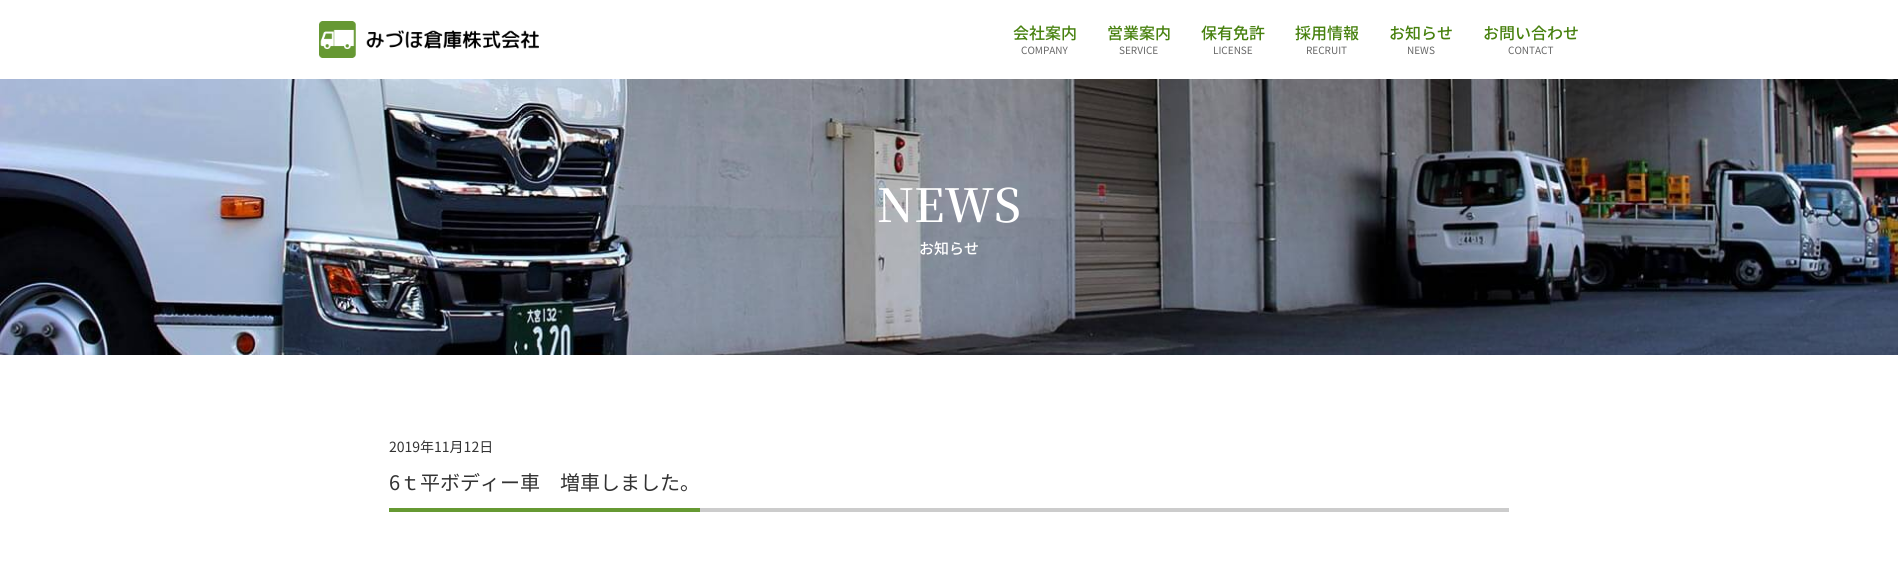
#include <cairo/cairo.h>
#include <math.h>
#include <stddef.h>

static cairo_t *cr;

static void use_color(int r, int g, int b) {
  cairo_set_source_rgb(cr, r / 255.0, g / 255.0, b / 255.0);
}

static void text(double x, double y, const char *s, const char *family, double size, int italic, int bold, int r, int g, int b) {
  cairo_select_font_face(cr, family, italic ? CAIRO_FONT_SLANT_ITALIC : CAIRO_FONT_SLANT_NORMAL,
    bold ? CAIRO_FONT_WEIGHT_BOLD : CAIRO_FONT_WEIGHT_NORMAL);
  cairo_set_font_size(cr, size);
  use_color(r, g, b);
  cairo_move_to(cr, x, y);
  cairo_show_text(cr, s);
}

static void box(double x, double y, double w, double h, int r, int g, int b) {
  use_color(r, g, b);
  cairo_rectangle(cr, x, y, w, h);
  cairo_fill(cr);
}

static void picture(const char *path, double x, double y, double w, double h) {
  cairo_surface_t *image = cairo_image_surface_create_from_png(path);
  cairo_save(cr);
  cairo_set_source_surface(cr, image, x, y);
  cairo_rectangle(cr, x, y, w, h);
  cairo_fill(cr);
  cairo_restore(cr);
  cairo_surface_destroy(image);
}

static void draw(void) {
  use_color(255, 255, 255);
  cairo_paint(cr);
  picture("img_01.png", 319, 21, 220, 37);
  picture("img_02.png", 0, 79, 1898, 276);
  box(389, 508, 311, 4, 102, 153, 51);
  box(700, 508, 809, 4, 204, 204, 204);
  text(1013, 39, "会社案内", "Noto Sans JP Medium", 16, 0, 0, 71, 129, 14);
  text(1021, 54, "COMPANY", "Noto Sans JP", 10, 0, 0, 102, 102, 102);
  text(1107, 39, "営業案内", "Noto Sans JP Medium", 16, 0, 0, 71, 129, 14);
  text(1119, 54, "SERVICE", "Noto Sans JP", 10, 0, 0, 102, 102, 102);
  text(1201, 39, "保有免許", "Noto Sans JP Medium", 16, 0, 0, 71, 129, 14);
  text(1213, 54, "LICENSE", "Noto Sans JP", 10, 0, 0, 102, 102, 102);
  text(1295, 39, "採用情報", "Noto Sans JP Medium", 16, 0, 0, 71, 129, 14);
  text(1306, 54, "RECRUIT", "Noto Sans JP", 10, 0, 0, 102, 102, 102);
  text(1389, 39, "お知らせ", "Noto Sans JP Medium", 16, 0, 0, 71, 129, 14);
  text(1407, 54, "NEWS", "Noto Sans JP", 10, 0, 0, 102, 102, 102);
  text(1483, 39, "お問い合わせ", "Noto Sans JP Medium", 16, 0, 0, 71, 129, 14);
  text(1508, 54, "CONTACT", "Noto Sans JP", 10, 0, 0, 102, 102, 102);
  text(877, 222, "NEWS", "Noto Serif JP SemiBold", 46, 0, 0, 255, 255, 255);
  text(919, 254, "お知らせ", "Noto Sans JP Medium", 15, 0, 0, 255, 255, 255);
  text(389, 452, "2019年11月12日", "Noto Sans JP", 14, 0, 0, 51, 51, 51);
  text(389, 490, "6ｔ平ボディー車　増車しました。", "Noto Sans JP", 20, 0, 0, 51, 51, 51);
}

int main(void) {
  cairo_surface_t *surface = cairo_image_surface_create(CAIRO_FORMAT_RGB24, 1898, 565);
  cr = cairo_create(surface);
  cairo_font_options_t *options = cairo_font_options_create();
  cairo_font_options_set_hint_metrics(options, CAIRO_HINT_METRICS_OFF);
  cairo_font_options_set_hint_style(options, CAIRO_HINT_STYLE_NONE);
  cairo_set_font_options(cr, options);
  cairo_set_miter_limit(cr, 4);
  draw();
  cairo_surface_write_to_png(surface, "out.png");
  cairo_font_options_destroy(options);
  cairo_destroy(cr);
  cairo_surface_destroy(surface);
  return 0;
}
